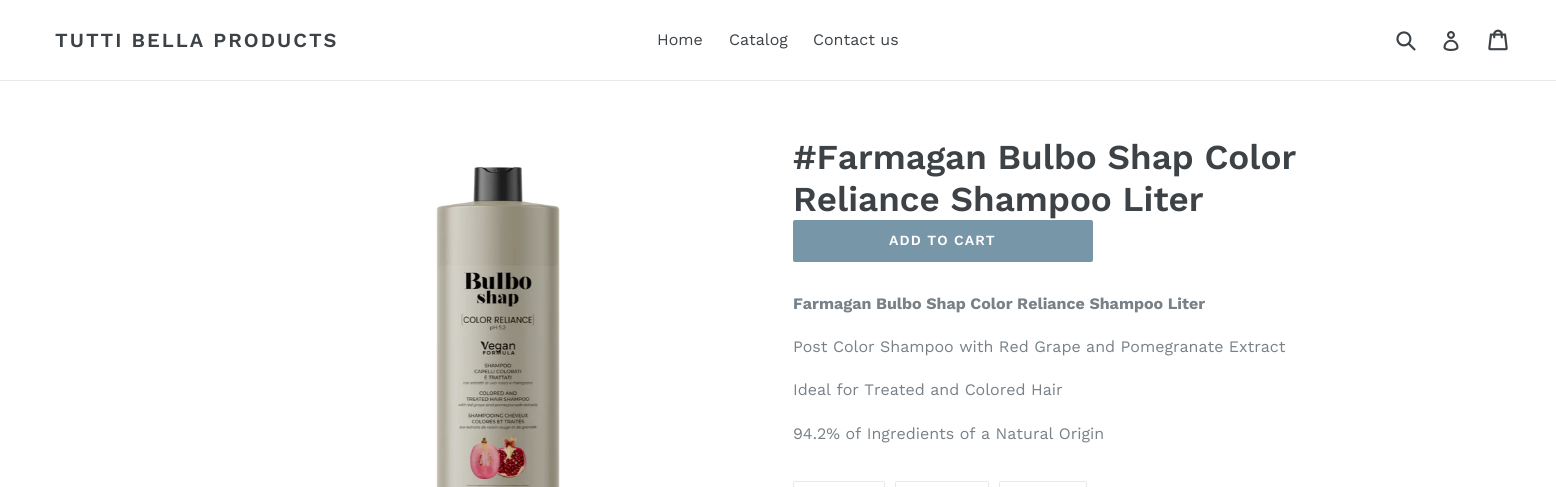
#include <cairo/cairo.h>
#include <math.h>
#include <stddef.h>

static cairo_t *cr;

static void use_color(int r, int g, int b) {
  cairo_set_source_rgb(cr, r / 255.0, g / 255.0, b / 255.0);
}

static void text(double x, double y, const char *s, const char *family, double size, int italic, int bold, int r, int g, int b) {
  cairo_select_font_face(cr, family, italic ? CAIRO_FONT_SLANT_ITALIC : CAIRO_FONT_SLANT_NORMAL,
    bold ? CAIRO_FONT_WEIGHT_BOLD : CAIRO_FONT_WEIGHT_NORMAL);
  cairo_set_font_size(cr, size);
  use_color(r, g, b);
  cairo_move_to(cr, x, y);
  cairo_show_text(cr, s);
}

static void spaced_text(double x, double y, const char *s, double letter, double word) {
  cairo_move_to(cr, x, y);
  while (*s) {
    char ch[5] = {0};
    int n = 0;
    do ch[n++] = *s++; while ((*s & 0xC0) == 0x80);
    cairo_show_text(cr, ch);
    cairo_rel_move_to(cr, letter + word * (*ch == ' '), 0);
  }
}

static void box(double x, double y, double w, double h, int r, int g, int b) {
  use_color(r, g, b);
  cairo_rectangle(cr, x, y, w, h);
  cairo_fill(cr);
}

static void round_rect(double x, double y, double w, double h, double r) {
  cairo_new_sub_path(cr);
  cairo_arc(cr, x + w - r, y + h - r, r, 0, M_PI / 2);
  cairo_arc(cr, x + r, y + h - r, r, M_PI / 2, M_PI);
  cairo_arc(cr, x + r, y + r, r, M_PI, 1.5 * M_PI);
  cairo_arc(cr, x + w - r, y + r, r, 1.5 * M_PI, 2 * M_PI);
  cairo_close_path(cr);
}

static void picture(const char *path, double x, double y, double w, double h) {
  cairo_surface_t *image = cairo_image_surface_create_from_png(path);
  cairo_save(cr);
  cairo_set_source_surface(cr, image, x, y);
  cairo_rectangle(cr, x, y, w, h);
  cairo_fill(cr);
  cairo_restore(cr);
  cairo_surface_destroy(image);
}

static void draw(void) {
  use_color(255, 255, 255);
  cairo_paint(cr);
  box(0, 80, 1556, 1, 232, 233, 235);
  picture("img_01.png", 1396, 31, 20, 20);
  picture("img_02.png", 1443, 31, 16, 20);
  picture("img_03.png", 1488, 29, 20, 22);
  picture("img_04.png", 436, 166, 124, 321);
  use_color(119, 150, 168);
  round_rect(793, 220, 300, 42, 2);
  cairo_fill(cr);
  round_rect(793.5, 481.5, 91, 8, 1.5);
  use_color(232, 233, 235);
  cairo_set_line_width(cr, 1);
  cairo_stroke(cr);
  round_rect(895.5, 481.5, 93, 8, 1.5);
  cairo_stroke(cr);
  round_rect(999.5, 481.5, 87, 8, 1.5);
  cairo_stroke(cr);
  cairo_select_font_face(cr, "Work Sans SemiBold", CAIRO_FONT_SLANT_NORMAL, CAIRO_FONT_WEIGHT_NORMAL);
  cairo_set_font_size(cr, 20);
  use_color(61, 66, 70);
  spaced_text(55, 47, "TUTTI BELLA PRODUCTS", 2, 0);
  text(657, 45, "Home", "Work Sans", 16, 0, 0, 61, 66, 70);
  text(729, 45, "Catalog", "Work Sans", 16, 0, 0, 61, 66, 70);
  text(813, 45, "Contact us", "Work Sans", 16, 0, 0, 61, 66, 70);
  text(793, 169, "#Farmagan Bulbo Shap Color", "Work Sans SemiBold", 35, 0, 0, 61, 66, 70);
  text(793, 211, "Reliance Shampoo Liter", "Work Sans SemiBold", 35, 0, 0, 61, 66, 70);
  cairo_set_font_size(cr, 14);
  use_color(255, 255, 255);
  spaced_text(889, 245, "ADD TO CART", 1.1, 0);
  text(793, 309, "Farmagan Bulbo Shap Color Reliance Shampoo Liter", "Work Sans", 16, 0, 1, 120, 129, 136);
  text(793, 352, "Post Color Shampoo with Red Grape and Pomegranate Extract", "Work Sans", 16, 0, 0, 120, 129, 136);
  text(793, 395, "Ideal for Treated and Colored Hair", "Work Sans", 16, 0, 0, 120, 129, 136);
  text(793, 439, "94.2% of Ingredients of a Natural Origin", "Work Sans", 16, 0, 0, 120, 129, 136);
}

int main(void) {
  cairo_surface_t *surface = cairo_image_surface_create(CAIRO_FORMAT_RGB24, 1556, 487);
  cr = cairo_create(surface);
  cairo_font_options_t *options = cairo_font_options_create();
  cairo_font_options_set_hint_metrics(options, CAIRO_HINT_METRICS_OFF);
  cairo_font_options_set_hint_style(options, CAIRO_HINT_STYLE_NONE);
  cairo_set_font_options(cr, options);
  cairo_set_miter_limit(cr, 4);
  draw();
  cairo_surface_write_to_png(surface, "out.png");
  cairo_font_options_destroy(options);
  cairo_destroy(cr);
  cairo_surface_destroy(surface);
  return 0;
}
